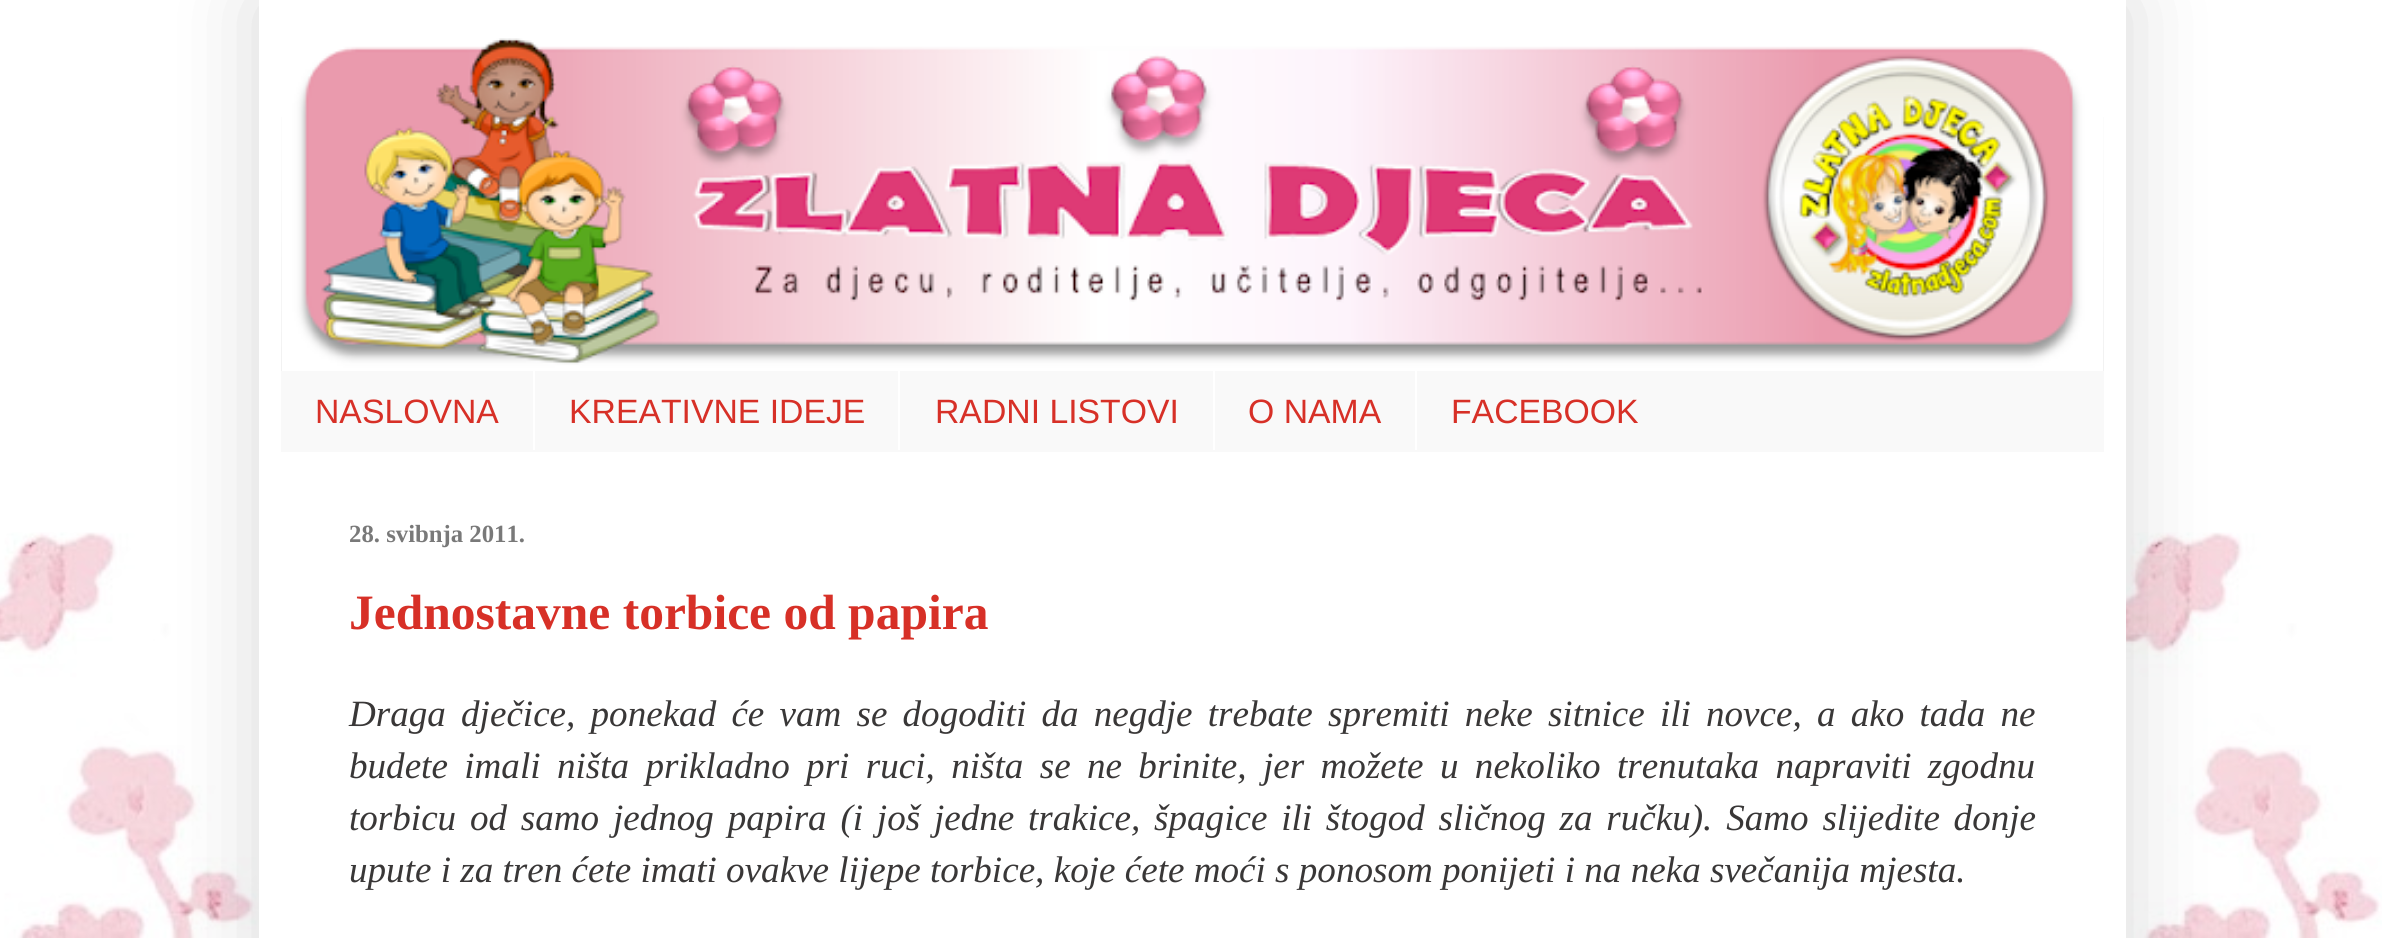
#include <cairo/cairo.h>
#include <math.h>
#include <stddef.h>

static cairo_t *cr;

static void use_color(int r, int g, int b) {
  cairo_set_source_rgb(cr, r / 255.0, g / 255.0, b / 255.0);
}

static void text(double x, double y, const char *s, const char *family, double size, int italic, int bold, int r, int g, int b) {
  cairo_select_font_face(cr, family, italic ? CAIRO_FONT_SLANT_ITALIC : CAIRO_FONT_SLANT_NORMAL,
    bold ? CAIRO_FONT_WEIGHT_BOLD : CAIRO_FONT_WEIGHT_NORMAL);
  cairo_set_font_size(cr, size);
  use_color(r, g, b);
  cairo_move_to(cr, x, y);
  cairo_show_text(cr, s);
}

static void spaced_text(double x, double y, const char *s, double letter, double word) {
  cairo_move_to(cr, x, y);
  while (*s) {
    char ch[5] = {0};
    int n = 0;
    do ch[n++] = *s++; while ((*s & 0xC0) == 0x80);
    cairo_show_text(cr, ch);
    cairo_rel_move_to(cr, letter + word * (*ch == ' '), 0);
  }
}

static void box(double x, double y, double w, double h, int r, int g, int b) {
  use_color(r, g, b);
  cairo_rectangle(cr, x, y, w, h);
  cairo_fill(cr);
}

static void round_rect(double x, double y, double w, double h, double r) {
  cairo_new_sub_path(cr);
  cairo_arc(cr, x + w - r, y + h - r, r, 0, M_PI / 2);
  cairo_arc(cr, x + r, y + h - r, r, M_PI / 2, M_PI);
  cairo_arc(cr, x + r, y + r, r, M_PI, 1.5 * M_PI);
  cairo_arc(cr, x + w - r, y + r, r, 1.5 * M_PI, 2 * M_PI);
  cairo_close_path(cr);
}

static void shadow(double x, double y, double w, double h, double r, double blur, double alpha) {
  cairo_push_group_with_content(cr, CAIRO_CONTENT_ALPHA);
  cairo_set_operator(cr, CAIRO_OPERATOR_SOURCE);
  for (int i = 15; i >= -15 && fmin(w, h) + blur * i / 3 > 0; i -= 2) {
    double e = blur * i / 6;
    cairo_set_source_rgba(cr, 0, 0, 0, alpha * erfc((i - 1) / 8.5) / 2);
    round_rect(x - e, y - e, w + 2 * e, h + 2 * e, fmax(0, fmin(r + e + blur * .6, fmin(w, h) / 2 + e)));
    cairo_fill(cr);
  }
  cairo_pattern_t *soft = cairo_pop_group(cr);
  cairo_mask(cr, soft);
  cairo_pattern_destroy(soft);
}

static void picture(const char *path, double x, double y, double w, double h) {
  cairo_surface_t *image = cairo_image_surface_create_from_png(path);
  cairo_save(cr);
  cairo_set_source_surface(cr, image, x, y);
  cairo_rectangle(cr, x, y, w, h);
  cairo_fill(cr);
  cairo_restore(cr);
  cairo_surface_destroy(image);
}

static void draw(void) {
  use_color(255, 255, 255);
  cairo_paint(cr);
  picture("img_01.png", 0, 532, 2382, 406);
  use_color(0, 0, 0);
  shadow(259, 0, 1867, 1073, 0, 45, 0.15);
  box(259, 0, 1867, 938, 255, 255, 255);
  picture("img_02.png", 281, 117, 1823, 254);
  picture("img_03.png", 281, 38, 1823, 333);
  box(281, 371, 1823, 81, 249, 249, 249);
  box(533, 371, 2, 79, 255, 255, 255);
  box(898, 371, 2, 79, 255, 255, 255);
  box(1213, 371, 2, 79, 255, 255, 255);
  box(1415, 371, 2, 79, 255, 255, 255);
  text(315, 423, "NASLOVNA", "Liberation Sans", 33.75, 0, 0, 215, 48, 39);
  text(569, 423, "KREATIVNE IDEJE", "Liberation Sans", 33.75, 0, 0, 215, 48, 39);
  text(935, 423, "RADNI LISTOVI", "Liberation Sans", 33.75, 0, 0, 215, 48, 39);
  text(1248, 423, "O NAMA", "Liberation Sans", 33.75, 0, 0, 215, 48, 39);
  text(1451, 423, "FACEBOOK", "Liberation Sans", 33.75, 0, 0, 215, 48, 39);
  text(349, 542, "28. svibnja 2011.", "Liberation Serif", 24.75, 0, 1, 121, 121, 121);
  text(349, 629, "Jednostavne torbice od papira", "Liberation Serif", 49.5, 0, 1, 215, 48, 39);
  cairo_select_font_face(cr, "Liberation Serif", CAIRO_FONT_SLANT_ITALIC, CAIRO_FONT_WEIGHT_NORMAL);
  cairo_set_font_size(cr, 37.1);
  use_color(57, 55, 55);
  spaced_text(349, 726, "Draga dječice, ponekad će vam se dogoditi da negdje trebate spremiti neke sitnice ili novce, a ako tada ne", 0, 5.9);
  spaced_text(349, 778, "budete imali ništa prikladno pri ruci, ništa se ne brinite, jer možete u nekoliko trenutaka napraviti zgodnu", 0, 7.1);
  spaced_text(349, 830, "torbicu od samo jednog papira (i još jedne trakice, špagice ili štogod sličnog za ručku). Samo slijedite donje", 0, 4.5);
  text(349, 882, "upute i za tren ćete imati ovakve lijepe torbice, koje ćete moći s ponosom ponijeti i na neka svečanija mjesta.", "Liberation Serif", 37.1, 1, 0, 57, 55, 55);
}

int main(void) {
  cairo_surface_t *surface = cairo_image_surface_create(CAIRO_FORMAT_RGB24, 2383, 938);
  cr = cairo_create(surface);
  cairo_font_options_t *options = cairo_font_options_create();
  cairo_font_options_set_hint_metrics(options, CAIRO_HINT_METRICS_OFF);
  cairo_font_options_set_hint_style(options, CAIRO_HINT_STYLE_NONE);
  cairo_set_font_options(cr, options);
  cairo_set_miter_limit(cr, 4);
  draw();
  cairo_surface_write_to_png(surface, "out.png");
  cairo_font_options_destroy(options);
  cairo_destroy(cr);
  cairo_surface_destroy(surface);
  return 0;
}
